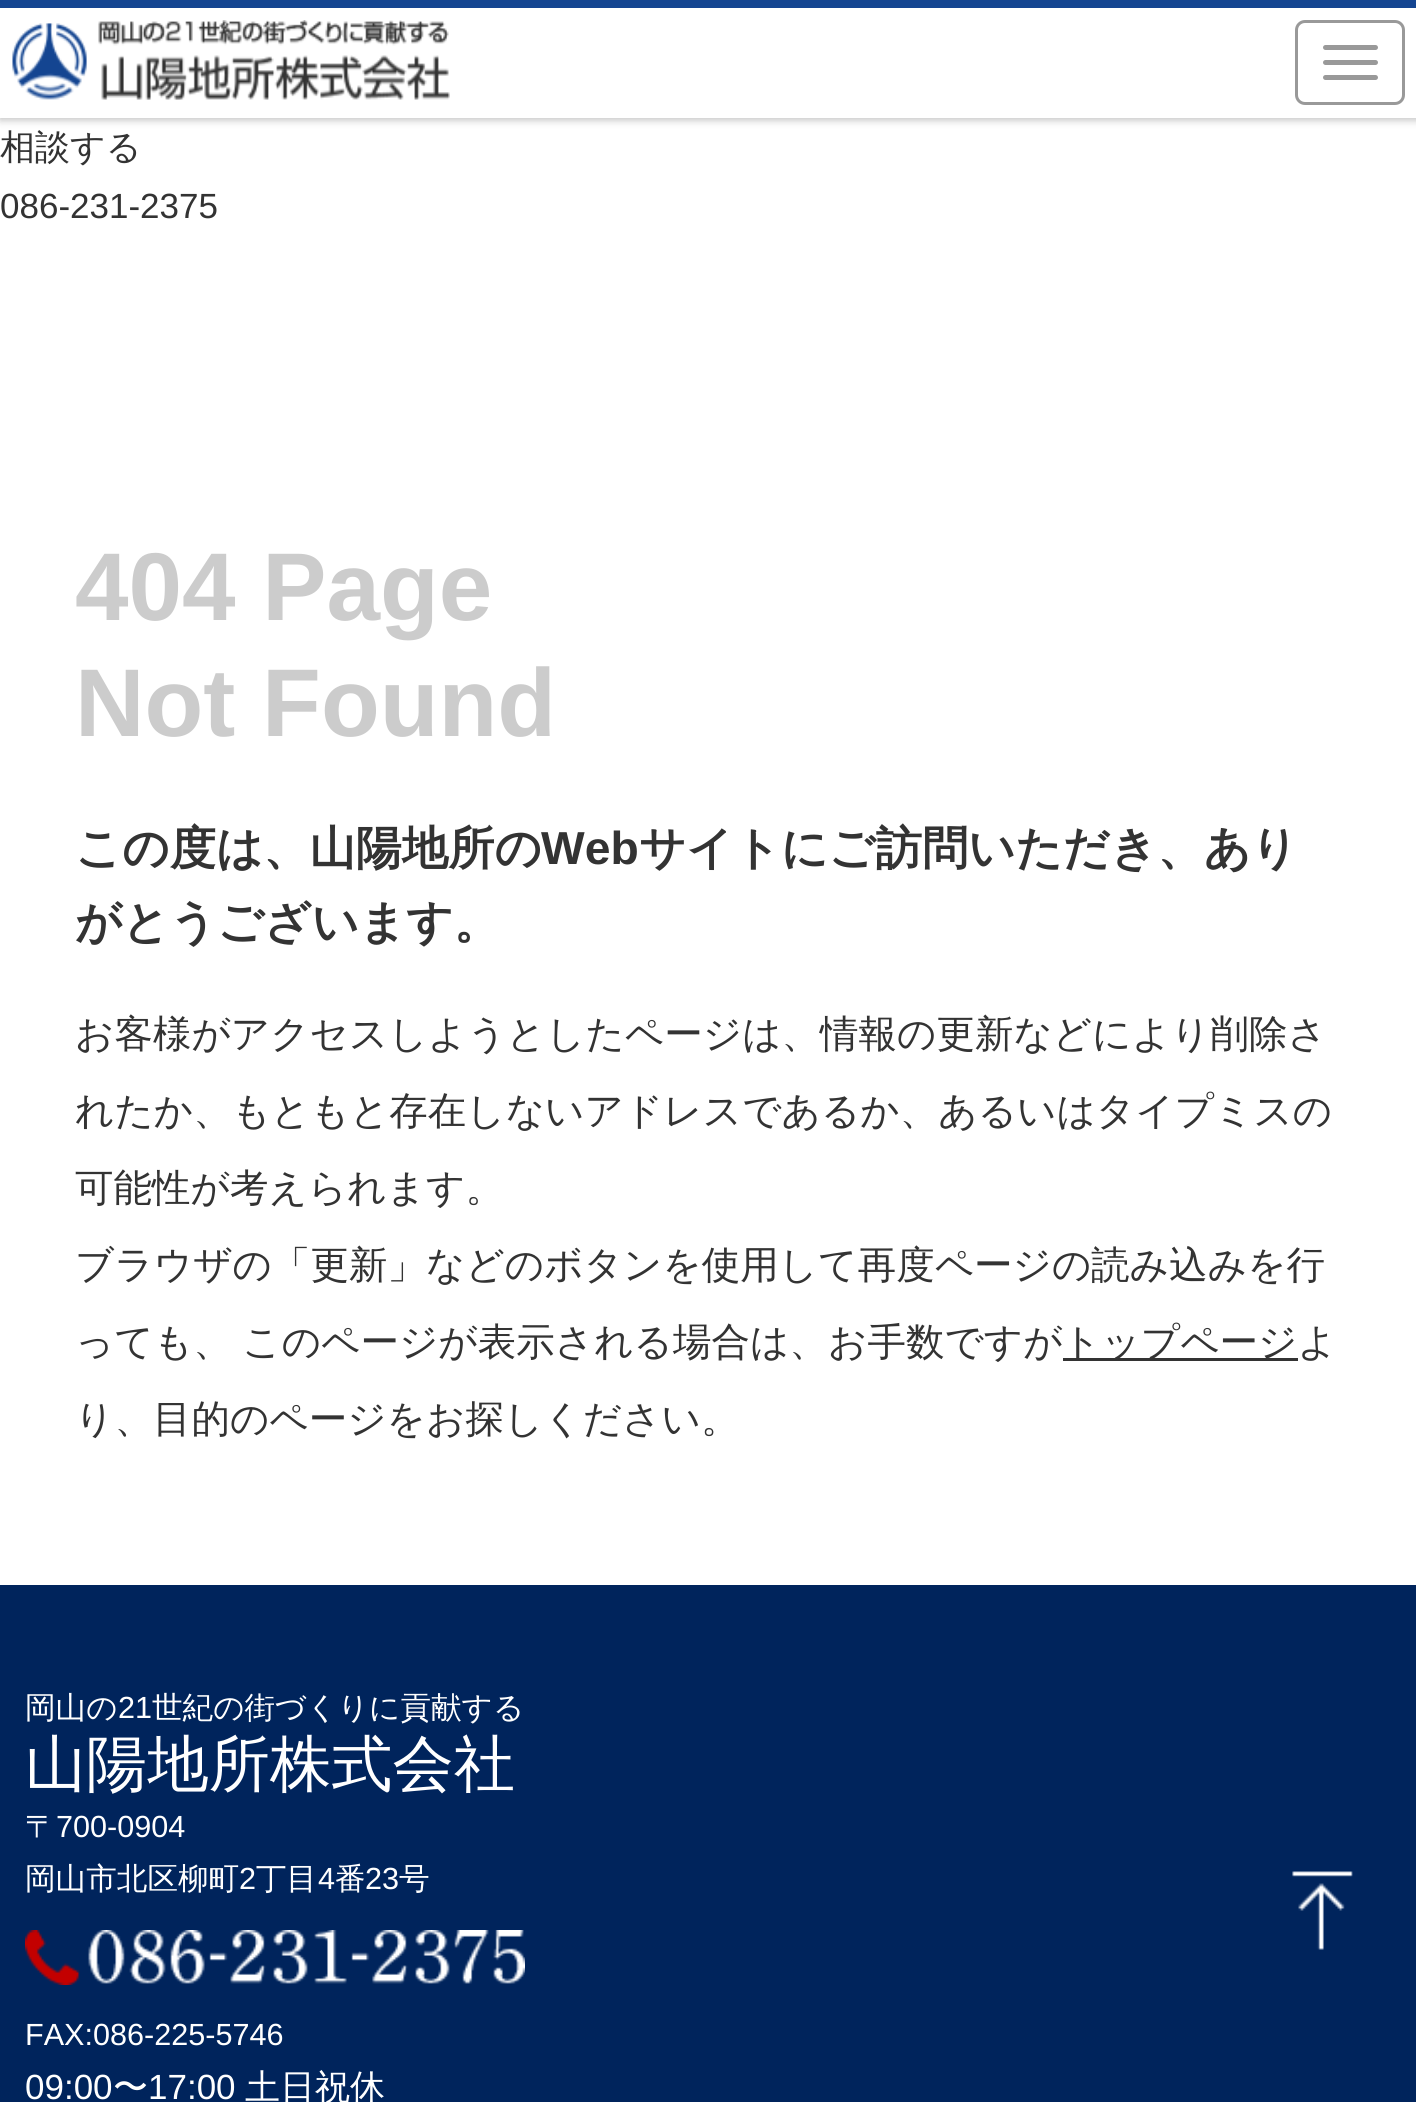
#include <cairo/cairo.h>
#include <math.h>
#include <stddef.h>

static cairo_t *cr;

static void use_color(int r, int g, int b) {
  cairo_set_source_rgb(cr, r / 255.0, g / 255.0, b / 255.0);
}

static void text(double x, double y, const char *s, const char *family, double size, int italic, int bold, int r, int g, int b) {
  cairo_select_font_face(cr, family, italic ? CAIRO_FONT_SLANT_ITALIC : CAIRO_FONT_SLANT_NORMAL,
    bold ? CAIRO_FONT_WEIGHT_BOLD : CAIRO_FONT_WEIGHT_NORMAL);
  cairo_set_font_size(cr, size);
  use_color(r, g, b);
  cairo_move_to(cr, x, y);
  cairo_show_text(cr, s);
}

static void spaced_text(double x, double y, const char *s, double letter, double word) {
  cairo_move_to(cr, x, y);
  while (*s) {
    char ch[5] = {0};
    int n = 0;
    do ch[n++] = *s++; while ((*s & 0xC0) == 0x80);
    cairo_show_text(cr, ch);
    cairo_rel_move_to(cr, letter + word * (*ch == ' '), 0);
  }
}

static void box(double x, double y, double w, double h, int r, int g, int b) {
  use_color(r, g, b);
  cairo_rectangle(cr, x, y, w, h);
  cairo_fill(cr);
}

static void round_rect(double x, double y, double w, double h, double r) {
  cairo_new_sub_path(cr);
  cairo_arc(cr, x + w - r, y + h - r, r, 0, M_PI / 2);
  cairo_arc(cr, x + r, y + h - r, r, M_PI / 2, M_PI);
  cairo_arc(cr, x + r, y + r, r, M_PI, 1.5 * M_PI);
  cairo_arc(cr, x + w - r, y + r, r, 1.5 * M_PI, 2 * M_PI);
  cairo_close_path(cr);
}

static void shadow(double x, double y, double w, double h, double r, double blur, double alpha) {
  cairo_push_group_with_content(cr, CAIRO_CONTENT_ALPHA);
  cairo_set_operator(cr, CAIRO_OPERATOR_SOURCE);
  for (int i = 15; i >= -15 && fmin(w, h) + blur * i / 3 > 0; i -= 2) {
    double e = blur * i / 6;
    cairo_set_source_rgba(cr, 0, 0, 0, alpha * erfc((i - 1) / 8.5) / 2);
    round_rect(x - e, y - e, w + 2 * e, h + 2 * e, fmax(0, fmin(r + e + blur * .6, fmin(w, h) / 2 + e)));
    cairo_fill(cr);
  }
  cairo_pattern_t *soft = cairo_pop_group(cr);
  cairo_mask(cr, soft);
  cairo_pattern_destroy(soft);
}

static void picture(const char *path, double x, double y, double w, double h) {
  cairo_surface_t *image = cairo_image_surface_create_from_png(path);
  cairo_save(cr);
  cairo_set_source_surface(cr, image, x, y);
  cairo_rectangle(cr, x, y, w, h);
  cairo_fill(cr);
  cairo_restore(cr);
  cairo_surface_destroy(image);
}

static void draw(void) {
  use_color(255, 255, 255);
  cairo_paint(cr);
  use_color(0, 0, 0);
  shadow(0, 3, 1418, 117, 0, 4, 0.25);
  box(0, 8, 1416, 110, 255, 255, 255);
  box(0, 0, 1416, 8, 20, 69, 145);
  picture("img_01.png", 12, 20, 438, 80);
  round_rect(1296.5, 21.5, 107, 82, 8.5);
  use_color(153, 153, 153);
  cairo_set_line_width(cr, 3);
  cairo_stroke(cr);
  round_rect(1323, 45, 55, 5, 2.5);
  cairo_fill(cr);
  round_rect(1323, 60, 55, 5, 2.5);
  cairo_fill(cr);
  round_rect(1323, 75, 55, 5, 2.5);
  cairo_fill(cr);
  box(1063, 1358, 235, 3, 51, 51, 51);
  box(0, 1585, 1416, 517, 0, 36, 92);
  picture("img_02.png", 25, 1930, 500, 55);
  picture("img_03.png", 1292, 1871, 61, 79);
  text(0, 159, "相談する", "WenQuanYi Zen Hei Medium", 35, 0, 0, 51, 51, 51);
  text(0, 218, "086-231-2375", "Liberation Sans", 35, 0, 0, 51, 51, 51);
  text(75, 620, "404 Page", "Liberation Sans", 96.25, 0, 1, 204, 204, 204);
  text(75, 736, "Not Found", "Liberation Sans", 96.25, 0, 1, 204, 204, 204);
  text(75, 864, "この度は、山陽地所の", "WenQuanYi Zen Hei", 46.25, 0, 1, 51, 51, 51);
  text(541, 864, "Web", "Liberation Sans", 46.25, 0, 1, 51, 51, 51);
  text(639, 864, "サイトにご訪問いただき、あり", "WenQuanYi Zen Hei", 46.25, 0, 1, 51, 51, 51);
  text(75, 938, "がとうございます。", "WenQuanYi Zen Hei", 46.25, 0, 1, 51, 51, 51);
  text(75, 1047, "お客様がアクセスしようとしたページは、情報の更新などにより削除さ", "WenQuanYi Zen Hei Medium", 38.5, 0, 0, 51, 51, 51);
  text(75, 1124, "れたか、もともと存在しないアドレスであるか、あるいはタイプミスの", "WenQuanYi Zen Hei Medium", 38.5, 0, 0, 51, 51, 51);
  text(75, 1201, "可能性が考えられます。", "WenQuanYi Zen Hei Medium", 38.5, 0, 0, 51, 51, 51);
  text(75, 1278, "ブラウザの「更新」などのボタンを使用して再度ページの読み込みを行", "WenQuanYi Zen Hei Medium", 38.5, 0, 0, 51, 51, 51);
  spaced_text(75, 1355, "っても、 このページが表示される場合は、", 0, -1);
  text(828, 1355, "お手数ですが", "WenQuanYi Zen Hei Medium", 38.5, 0, 0, 51, 51, 51);
  text(1062, 1355, "トップページよ", "WenQuanYi Zen Hei Medium", 38.5, 0, 0, 51, 51, 51);
  text(75, 1432, "り、目的のページをお探しください。", "WenQuanYi Zen Hei Medium", 38.5, 0, 0, 51, 51, 51);
  text(25, 1718, "岡山の", "WenQuanYi Zen Hei Medium", 30.6, 0, 0, 255, 255, 255);
  text(118, 1718, "21", "Liberation Sans", 30.6, 0, 0, 255, 255, 255);
  text(152, 1718, "世紀の街づくりに貢献する", "WenQuanYi Zen Hei Medium", 30.6, 0, 0, 255, 255, 255);
  text(25, 1785, "山陽地所株式会社", "WenQuanYi Zen Hei Medium", 61.25, 0, 0, 255, 255, 255);
  text(25, 1837, "〒", "WenQuanYi Zen Hei Medium", 30.6, 0, 0, 255, 255, 255);
  text(56, 1837, "700-0904", "Liberation Sans", 30.6, 0, 0, 255, 255, 255);
  text(25, 1889, "岡山市北区柳町", "WenQuanYi Zen Hei Medium", 30.6, 0, 0, 255, 255, 255);
  text(239, 1889, "2", "Liberation Sans", 30.6, 0, 0, 255, 255, 255);
  text(256, 1889, "丁目", "WenQuanYi Zen Hei Medium", 30.6, 0, 0, 255, 255, 255);
  text(318, 1889, "4", "Liberation Sans", 30.6, 0, 0, 255, 255, 255);
  text(335, 1889, "番", "WenQuanYi Zen Hei Medium", 30.6, 0, 0, 255, 255, 255);
  text(365, 1889, "23", "Liberation Sans", 30.6, 0, 0, 255, 255, 255);
  text(399, 1889, "号", "WenQuanYi Zen Hei Medium", 30.6, 0, 0, 255, 255, 255);
  text(25, 2045, "FAX:086-225-5746", "Liberation Sans", 30.6, 0, 0, 255, 255, 255);
  text(25, 2099, "09:00", "Liberation Sans", 35, 0, 0, 255, 255, 255);
  text(113, 2099, "〜", "WenQuanYi Zen Hei Medium", 35, 0, 0, 255, 255, 255);
  text(148, 2099, "17:00", "Liberation Sans", 35, 0, 0, 255, 255, 255);
  text(245, 2099, "土日祝休", "WenQuanYi Zen Hei Medium", 35, 0, 0, 255, 255, 255);
}

int main(void) {
  cairo_surface_t *surface = cairo_image_surface_create(CAIRO_FORMAT_RGB24, 1416, 2102);
  cr = cairo_create(surface);
  cairo_font_options_t *options = cairo_font_options_create();
  cairo_font_options_set_hint_metrics(options, CAIRO_HINT_METRICS_OFF);
  cairo_font_options_set_hint_style(options, CAIRO_HINT_STYLE_NONE);
  cairo_set_font_options(cr, options);
  cairo_set_miter_limit(cr, 4);
  draw();
  cairo_surface_write_to_png(surface, "out.png");
  cairo_font_options_destroy(options);
  cairo_destroy(cr);
  cairo_surface_destroy(surface);
  return 0;
}
